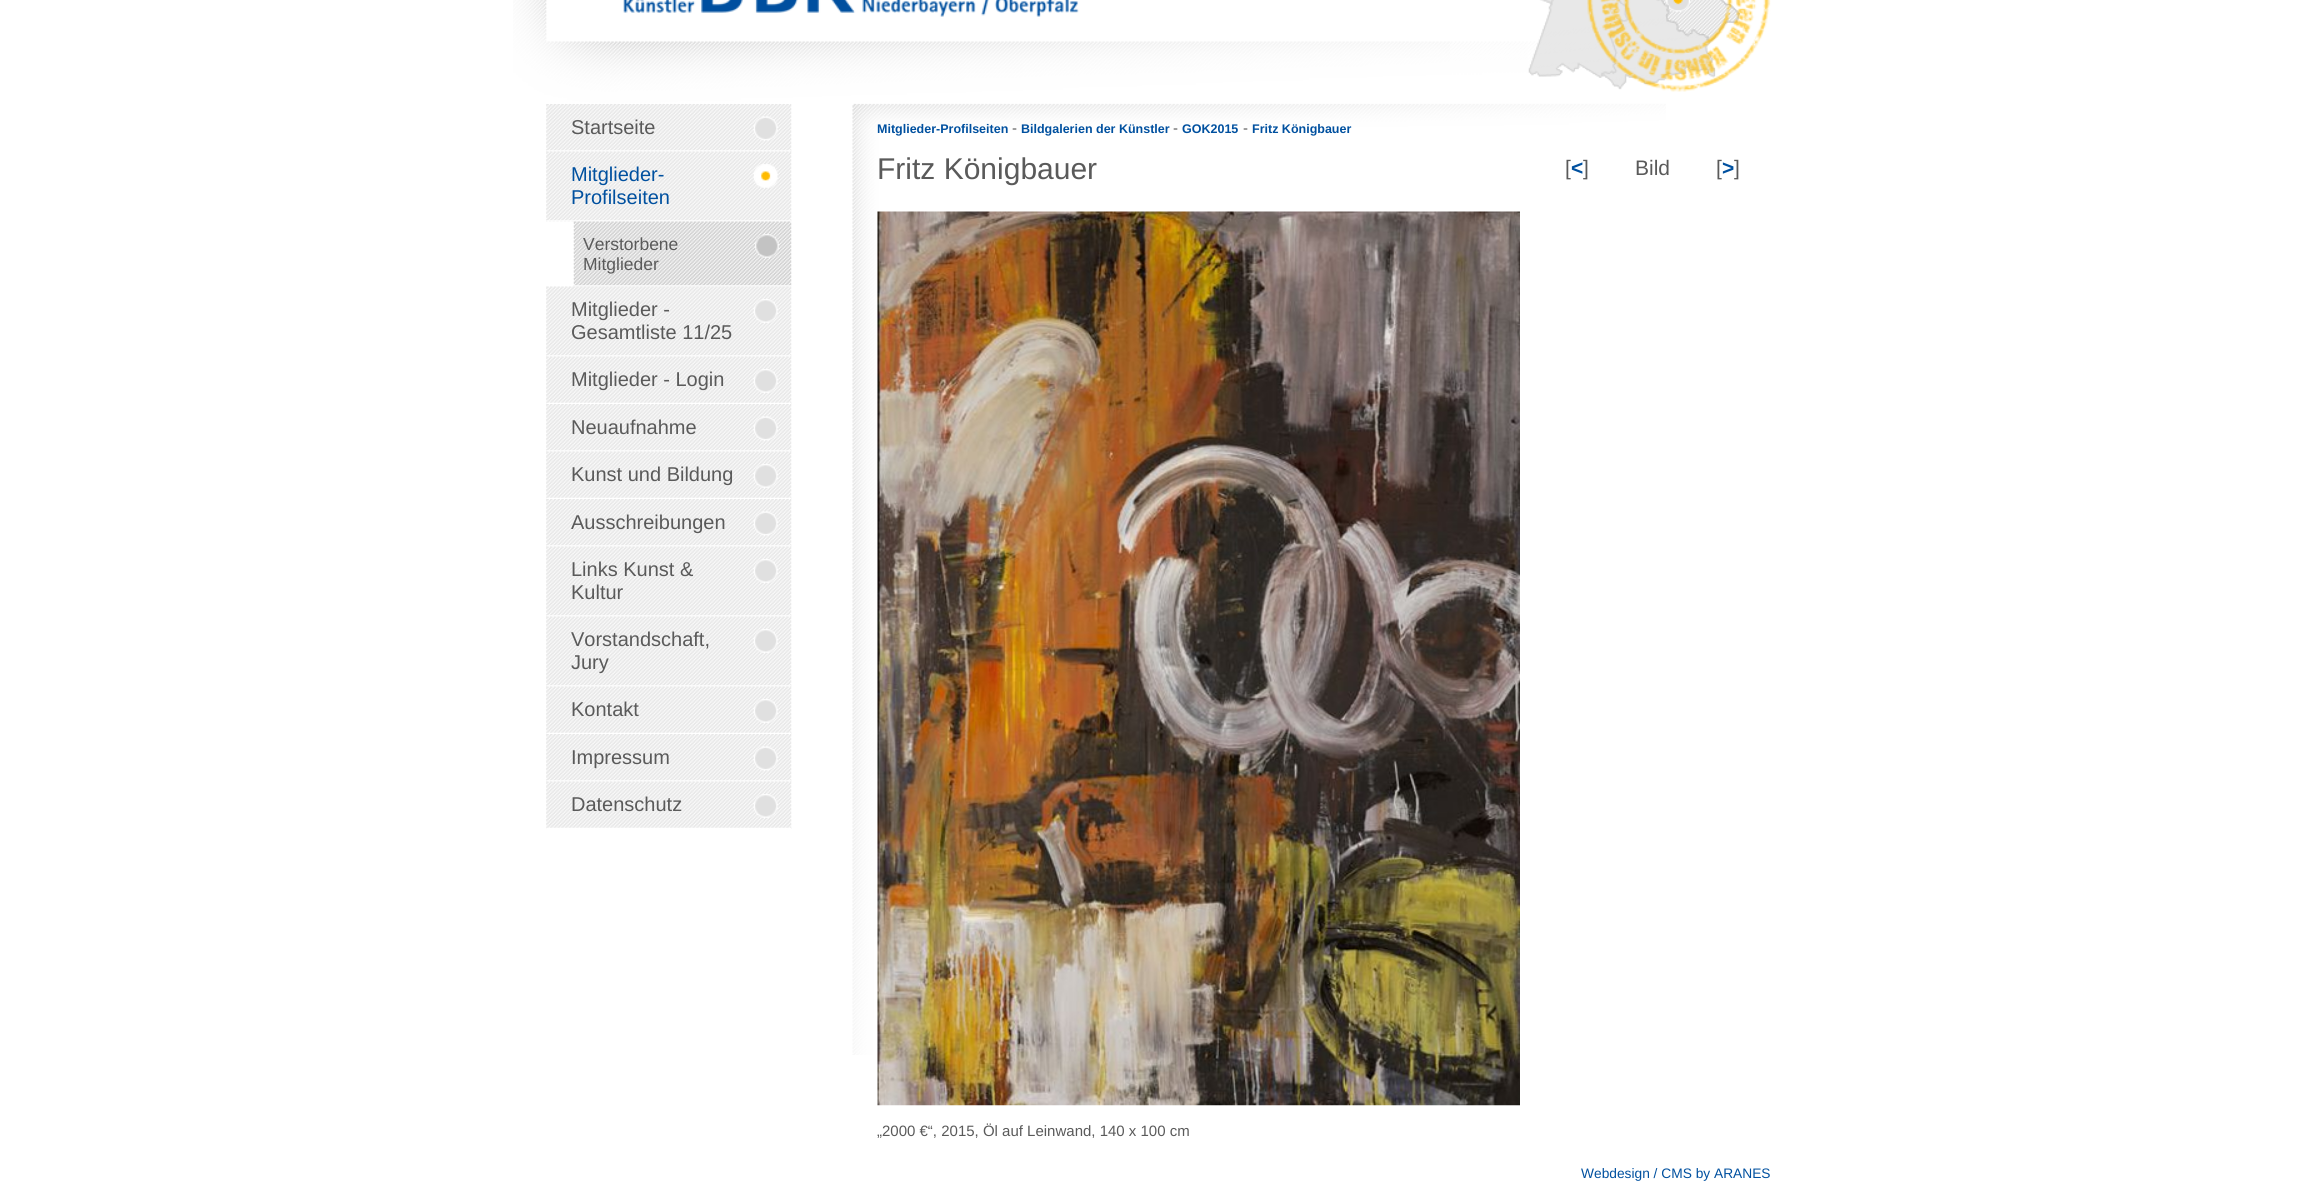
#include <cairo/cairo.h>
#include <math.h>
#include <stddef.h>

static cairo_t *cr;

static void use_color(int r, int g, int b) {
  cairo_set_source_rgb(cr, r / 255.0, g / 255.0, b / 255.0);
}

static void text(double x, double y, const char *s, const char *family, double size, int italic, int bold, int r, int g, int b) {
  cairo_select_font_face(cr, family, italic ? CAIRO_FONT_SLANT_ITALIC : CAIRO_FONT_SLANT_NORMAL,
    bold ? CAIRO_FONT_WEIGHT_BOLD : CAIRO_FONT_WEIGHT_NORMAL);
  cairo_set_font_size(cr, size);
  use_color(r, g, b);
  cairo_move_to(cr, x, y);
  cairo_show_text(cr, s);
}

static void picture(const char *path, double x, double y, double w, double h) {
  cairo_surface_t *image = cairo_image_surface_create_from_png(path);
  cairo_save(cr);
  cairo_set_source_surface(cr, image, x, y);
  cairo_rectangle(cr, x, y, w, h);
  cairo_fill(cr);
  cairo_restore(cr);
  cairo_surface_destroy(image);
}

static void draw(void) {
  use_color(255, 255, 255);
  cairo_paint(cr);
  picture("img_01.png", 513, 0, 1153, 1055);
  picture("img_02.png", 623, 0, 456, 17);
  picture("img_03.png", 1528, 0, 243, 92);
  picture("img_04.png", 546, 104, 246, 48);
  picture("img_05.png", 546, 150, 245, 2);
  picture("img_06.png", 546, 151, 246, 71);
  picture("img_05.png", 546, 220, 245, 2);
  picture("img_07.png", 573, 221, 219, 66);
  picture("img_08.png", 574, 285, 217, 2);
  picture("img_09.png", 546, 286, 246, 71);
  picture("img_05.png", 546, 355, 245, 2);
  picture("img_10.png", 546, 356, 246, 48);
  picture("img_11.png", 546, 402, 245, 2);
  picture("img_12.png", 546, 404, 246, 48);
  picture("img_05.png", 546, 450, 245, 2);
  picture("img_10.png", 546, 451, 246, 48);
  picture("img_11.png", 546, 497, 245, 2);
  picture("img_04.png", 546, 499, 246, 48);
  picture("img_05.png", 546, 545, 245, 2);
  picture("img_13.png", 546, 546, 246, 71);
  picture("img_05.png", 546, 615, 245, 2);
  picture("img_13.png", 546, 616, 246, 71);
  picture("img_05.png", 546, 685, 245, 2);
  picture("img_10.png", 546, 686, 246, 48);
  picture("img_11.png", 546, 732, 245, 2);
  picture("img_04.png", 546, 734, 246, 48);
  picture("img_05.png", 546, 780, 245, 2);
  picture("img_10.png", 546, 781, 246, 48);
  picture("img_11.png", 546, 827, 245, 2);
  picture("img_14.png", 877, 211, 643, 895);
  text(571, 134, "Startseite", "Liberation Sans", 20, 0, 0, 90, 90, 90);
  text(571, 181, "Mitglieder-", "Liberation Sans", 20, 0, 0, 0, 80, 159);
  text(571, 204, "Profilseiten", "Liberation Sans", 20, 0, 0, 0, 80, 159);
  text(583, 250, "Verstorbene", "Liberation Sans", 17.5, 0, 0, 90, 90, 90);
  text(583, 270, "Mitglieder", "Liberation Sans", 17.5, 0, 0, 90, 90, 90);
  text(571, 316, "Mitglieder -", "Liberation Sans", 20, 0, 0, 90, 90, 90);
  text(571, 339, "Gesamtliste 11/25", "Liberation Sans", 20, 0, 0, 90, 90, 90);
  text(571, 386, "Mitglieder - Login", "Liberation Sans", 20, 0, 0, 90, 90, 90);
  text(571, 434, "Neuaufnahme", "Liberation Sans", 20, 0, 0, 90, 90, 90);
  text(571, 481, "Kunst und Bildung", "Liberation Sans", 20, 0, 0, 90, 90, 90);
  text(571, 529, "Ausschreibungen", "Liberation Sans", 20, 0, 0, 90, 90, 90);
  text(571, 576, "Links Kunst &", "Liberation Sans", 20, 0, 0, 90, 90, 90);
  text(571, 599, "Kultur", "Liberation Sans", 20, 0, 0, 90, 90, 90);
  text(571, 646, "Vorstandschaft,", "Liberation Sans", 20, 0, 0, 90, 90, 90);
  text(571, 669, "Jury", "Liberation Sans", 20, 0, 0, 90, 90, 90);
  text(571, 716, "Kontakt", "Liberation Sans", 20, 0, 0, 90, 90, 90);
  text(571, 764, "Impressum", "Liberation Sans", 20, 0, 0, 90, 90, 90);
  text(571, 811, "Datenschutz", "Liberation Sans", 20, 0, 0, 90, 90, 90);
  text(877, 133, "Mitglieder-Profilseiten", "Liberation Sans", 12.5, 0, 1, 0, 80, 159);
  text(1012, 133, "-", "Liberation Sans", 15, 0, 0, 90, 90, 90);
  text(1021, 133, "Bildgalerien der Künstler", "Liberation Sans", 12.5, 0, 1, 0, 80, 159);
  text(1173, 133, "-", "Liberation Sans", 15, 0, 0, 90, 90, 90);
  text(1182, 133, "GOK2015", "Liberation Sans", 12.5, 0, 1, 0, 80, 159);
  text(1243, 133, "-", "Liberation Sans", 15, 0, 0, 90, 90, 90);
  text(1252, 133, "Fritz Königbauer", "Liberation Sans", 12.5, 0, 1, 0, 80, 159);
  text(1565, 175, "[", "Liberation Sans", 21, 0, 0, 90, 90, 90);
  text(1571, 175, "<", "Liberation Sans", 21, 0, 1, 0, 80, 159);
  text(1583, 175, "]", "Liberation Sans", 21, 0, 0, 90, 90, 90);
  text(1635, 175, "Bild", "Liberation Sans", 21, 0, 0, 90, 90, 90);
  text(1716, 175, "[", "Liberation Sans", 21, 0, 0, 90, 90, 90);
  text(1722, 175, ">", "Liberation Sans", 21, 0, 1, 0, 80, 159);
  text(1734, 175, "]", "Liberation Sans", 21, 0, 0, 90, 90, 90);
  text(877, 179, "Fritz Königbauer", "Liberation Sans", 30, 0, 0, 90, 90, 90);
  text(877, 1136, "„2000 €“, 2015, Öl auf Leinwand, 140 x 100 cm", "Liberation Sans", 15, 0, 0, 90, 90, 90);
  text(1581, 1178, "Webdesign / CMS by ARANES", "Liberation Sans", 13.75, 0, 0, 0, 80, 159);
}

int main(void) {
  cairo_surface_t *surface = cairo_image_surface_create(CAIRO_FORMAT_RGB24, 2316, 1204);
  cr = cairo_create(surface);
  cairo_font_options_t *options = cairo_font_options_create();
  cairo_font_options_set_hint_metrics(options, CAIRO_HINT_METRICS_OFF);
  cairo_font_options_set_hint_style(options, CAIRO_HINT_STYLE_NONE);
  cairo_set_font_options(cr, options);
  cairo_set_miter_limit(cr, 4);
  draw();
  cairo_surface_write_to_png(surface, "out.png");
  cairo_font_options_destroy(options);
  cairo_destroy(cr);
  cairo_surface_destroy(surface);
  return 0;
}
